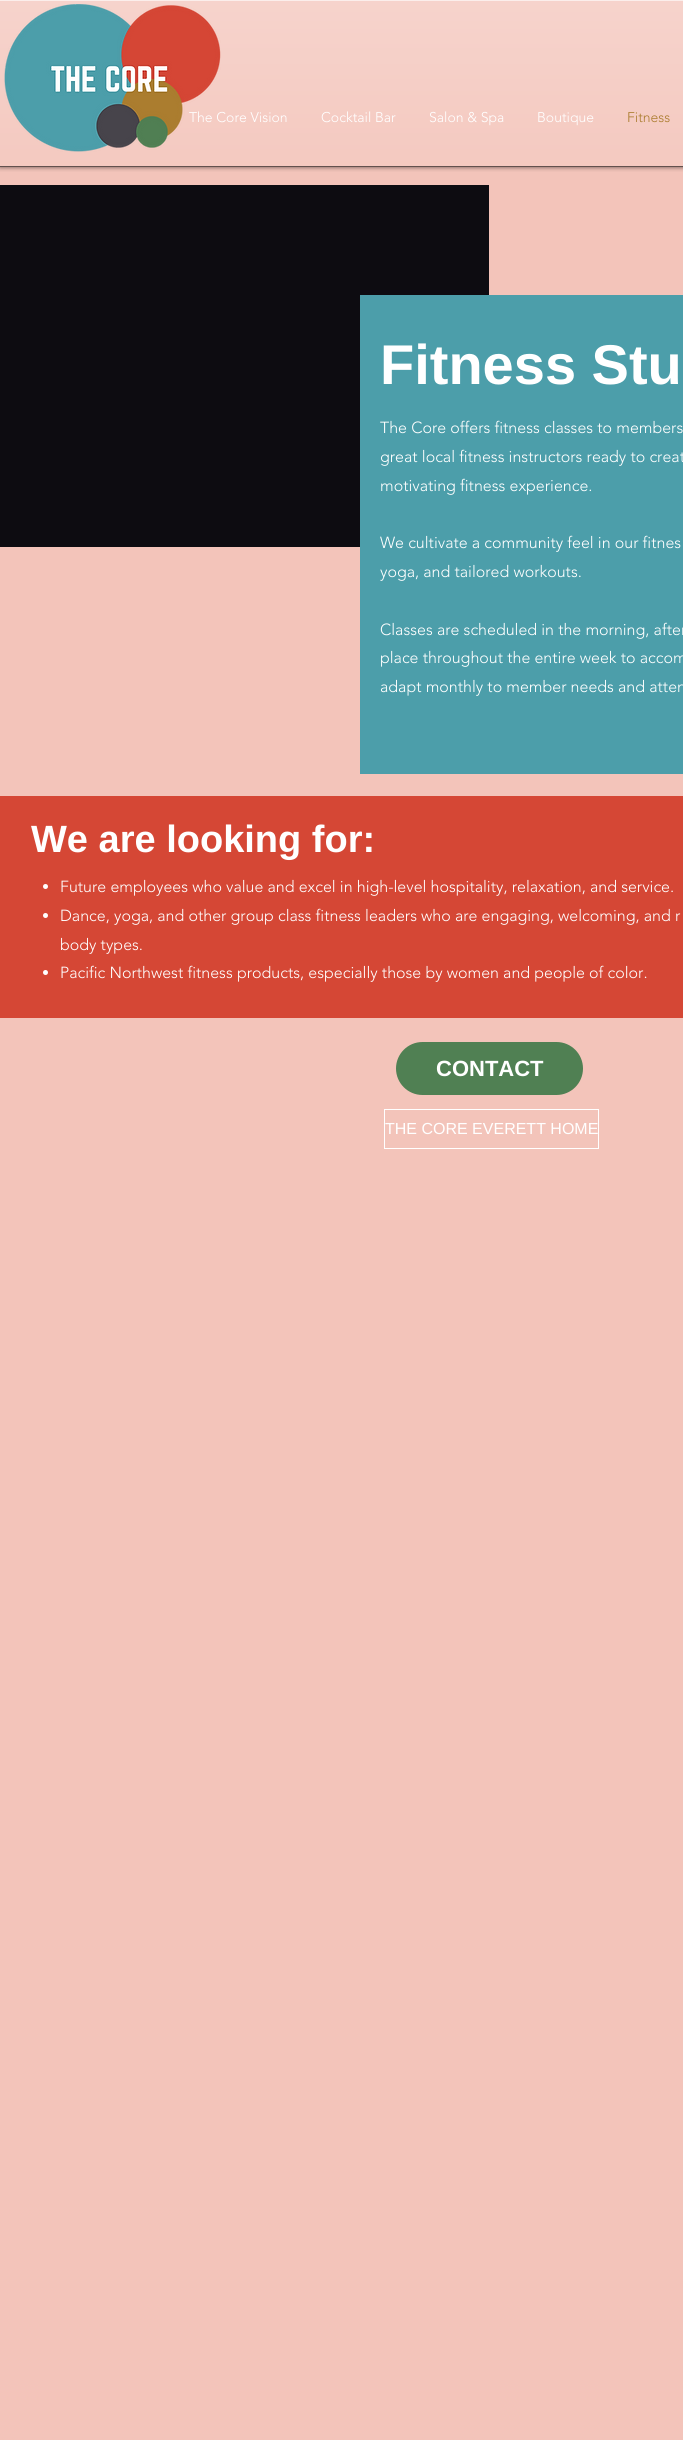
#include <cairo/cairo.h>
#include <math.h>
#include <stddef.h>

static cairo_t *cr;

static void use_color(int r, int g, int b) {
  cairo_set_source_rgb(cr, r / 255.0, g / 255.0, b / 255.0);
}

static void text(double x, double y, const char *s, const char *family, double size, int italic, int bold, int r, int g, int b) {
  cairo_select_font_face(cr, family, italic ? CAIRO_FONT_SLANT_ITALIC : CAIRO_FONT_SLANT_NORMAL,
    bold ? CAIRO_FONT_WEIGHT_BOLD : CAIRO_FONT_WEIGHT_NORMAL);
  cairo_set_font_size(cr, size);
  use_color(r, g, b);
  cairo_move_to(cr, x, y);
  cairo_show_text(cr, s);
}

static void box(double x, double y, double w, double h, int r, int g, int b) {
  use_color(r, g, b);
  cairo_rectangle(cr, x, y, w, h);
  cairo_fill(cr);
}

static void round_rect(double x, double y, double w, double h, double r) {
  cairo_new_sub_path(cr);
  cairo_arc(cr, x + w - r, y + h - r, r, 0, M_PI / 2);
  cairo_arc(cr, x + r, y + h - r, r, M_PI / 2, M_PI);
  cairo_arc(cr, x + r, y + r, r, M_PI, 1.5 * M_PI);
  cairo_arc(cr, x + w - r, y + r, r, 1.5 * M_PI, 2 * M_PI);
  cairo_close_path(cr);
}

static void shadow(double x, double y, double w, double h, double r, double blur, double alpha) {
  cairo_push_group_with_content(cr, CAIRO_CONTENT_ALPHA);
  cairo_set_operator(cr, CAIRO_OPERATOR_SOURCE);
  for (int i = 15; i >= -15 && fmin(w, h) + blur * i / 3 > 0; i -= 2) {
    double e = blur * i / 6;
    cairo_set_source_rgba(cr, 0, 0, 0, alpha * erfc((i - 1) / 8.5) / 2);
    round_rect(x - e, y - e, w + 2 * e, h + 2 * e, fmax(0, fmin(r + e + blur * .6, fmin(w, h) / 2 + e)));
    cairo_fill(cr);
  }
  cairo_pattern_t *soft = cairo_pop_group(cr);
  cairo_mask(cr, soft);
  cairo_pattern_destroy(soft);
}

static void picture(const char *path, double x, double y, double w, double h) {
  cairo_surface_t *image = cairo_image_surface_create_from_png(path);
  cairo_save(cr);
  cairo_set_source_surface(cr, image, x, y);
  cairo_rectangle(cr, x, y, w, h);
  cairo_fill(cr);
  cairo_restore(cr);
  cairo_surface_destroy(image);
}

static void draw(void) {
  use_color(243, 196, 186);
  cairo_paint(cr);
  cairo_save(cr);
  cairo_rectangle(cr, 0, 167, 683, 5);
  cairo_clip(cr);
  use_color(0, 0, 0);
  shadow(0, 0, 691, 167, 0, 2.5, 0.6);
  cairo_restore(cr);
  picture("img_01.png", 0, 1, 683, 165);
  box(0, 166, 683, 1, 98, 81, 77);
  box(0, 0, 683, 1, 251, 238, 235);
  box(0, 185, 489, 362, 13, 12, 17);
  box(360, 295, 323, 479, 76, 158, 170);
  box(0, 796, 683, 222, 213, 71, 53);
  use_color(255, 255, 255);
  cairo_arc(cr, 45.5, 886.5, 2.5, 0, 2 * M_PI);
  cairo_fill(cr);
  cairo_arc(cr, 45.5, 915.5, 2.5, 0, 2 * M_PI);
  cairo_fill(cr);
  cairo_arc(cr, 45.5, 972.5, 2.5, 0, 2 * M_PI);
  cairo_fill(cr);
  use_color(80, 128, 83);
  round_rect(396, 1042, 187, 53, 26.5);
  cairo_fill(cr);
  cairo_rectangle(cr, 384.5, 1109.5, 214, 39);
  use_color(255, 255, 255);
  cairo_set_line_width(cr, 1);
  cairo_stroke(cr);
  text(189, 122, "The Core Vision", "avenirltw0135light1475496 Light", 14, 0, 0, 255, 255, 255);
  picture("img_02.png", 4, 4, 217, 148);
  text(321, 122, "Cocktail Bar", "avenirltw0135light1475496 Light", 14, 0, 0, 255, 255, 255);
  text(429, 122, "Salon & Spa", "avenirltw0135light1475496 Light", 14, 0, 0, 255, 255, 255);
  text(537, 122, "Boutique", "avenirltw0135light1475496 Light", 14, 0, 0, 255, 255, 255);
  text(627, 122, "Fitness", "avenirltw0135light1475496 Light", 14, 0, 0, 171, 125, 47);
  text(380, 384, "Fitness Stu", "Liberation Sans", 56, 0, 1, 255, 255, 255);
  text(380, 433, "The Core offers fitness classes to members", "avenirltw0135light1475496 Light", 16, 0, 0, 255, 255, 255);
  text(380, 462, "great local fitness instructors ready to creat", "avenirltw0135light1475496 Light", 16, 0, 0, 255, 255, 255);
  text(380, 491, "motivating fitness experience.", "avenirltw0135light1475496 Light", 16, 0, 0, 255, 255, 255);
  text(380, 548, "We cultivate a community feel in our fitnes", "avenirltw0135light1475496 Light", 16, 0, 0, 255, 255, 255);
  text(380, 577, "yoga, and tailored workouts.", "avenirltw0135light1475496 Light", 16, 0, 0, 255, 255, 255);
  text(380, 635, "Classes are scheduled in the morning, after", "avenirltw0135light1475496 Light", 16, 0, 0, 255, 255, 255);
  text(380, 663, "place throughout the entire week to accom", "avenirltw0135light1475496 Light", 16, 0, 0, 255, 255, 255);
  text(380, 692, "adapt monthly to member needs and atten", "avenirltw0135light1475496 Light", 16, 0, 0, 255, 255, 255);
  text(31, 852, "We are looking for:", "Liberation Sans", 38, 0, 1, 255, 255, 255);
  text(60, 892, "Future employees who value and excel in high-level hospitality, relaxation, and service.", "avenirltw0135light1475496 Light", 16, 0, 0, 255, 255, 255);
  text(60, 921, "Dance, yoga, and other group class fitness leaders who are engaging, welcoming, and r", "avenirltw0135light1475496 Light", 16, 0, 0, 255, 255, 255);
  text(60, 950, "body types.", "avenirltw0135light1475496 Light", 16, 0, 0, 255, 255, 255);
  text(60, 978, "Pacific Northwest fitness products, especially those by women and people of color.", "avenirltw0135light1475496 Light", 16, 0, 0, 255, 255, 255);
  text(436, 1076, "CONTACT", "Liberation Sans", 22, 0, 1, 255, 255, 255);
  text(385, 1134, "THE CORE EVERETT HOME", "Liberation Sans", 16, 0, 0, 255, 255, 255);
}

int main(void) {
  cairo_surface_t *surface = cairo_image_surface_create(CAIRO_FORMAT_RGB24, 683, 2440);
  cr = cairo_create(surface);
  cairo_font_options_t *options = cairo_font_options_create();
  cairo_font_options_set_hint_metrics(options, CAIRO_HINT_METRICS_OFF);
  cairo_font_options_set_hint_style(options, CAIRO_HINT_STYLE_NONE);
  cairo_set_font_options(cr, options);
  cairo_set_miter_limit(cr, 4);
  draw();
  cairo_surface_write_to_png(surface, "out.png");
  cairo_font_options_destroy(options);
  cairo_destroy(cr);
  cairo_surface_destroy(surface);
  return 0;
}
